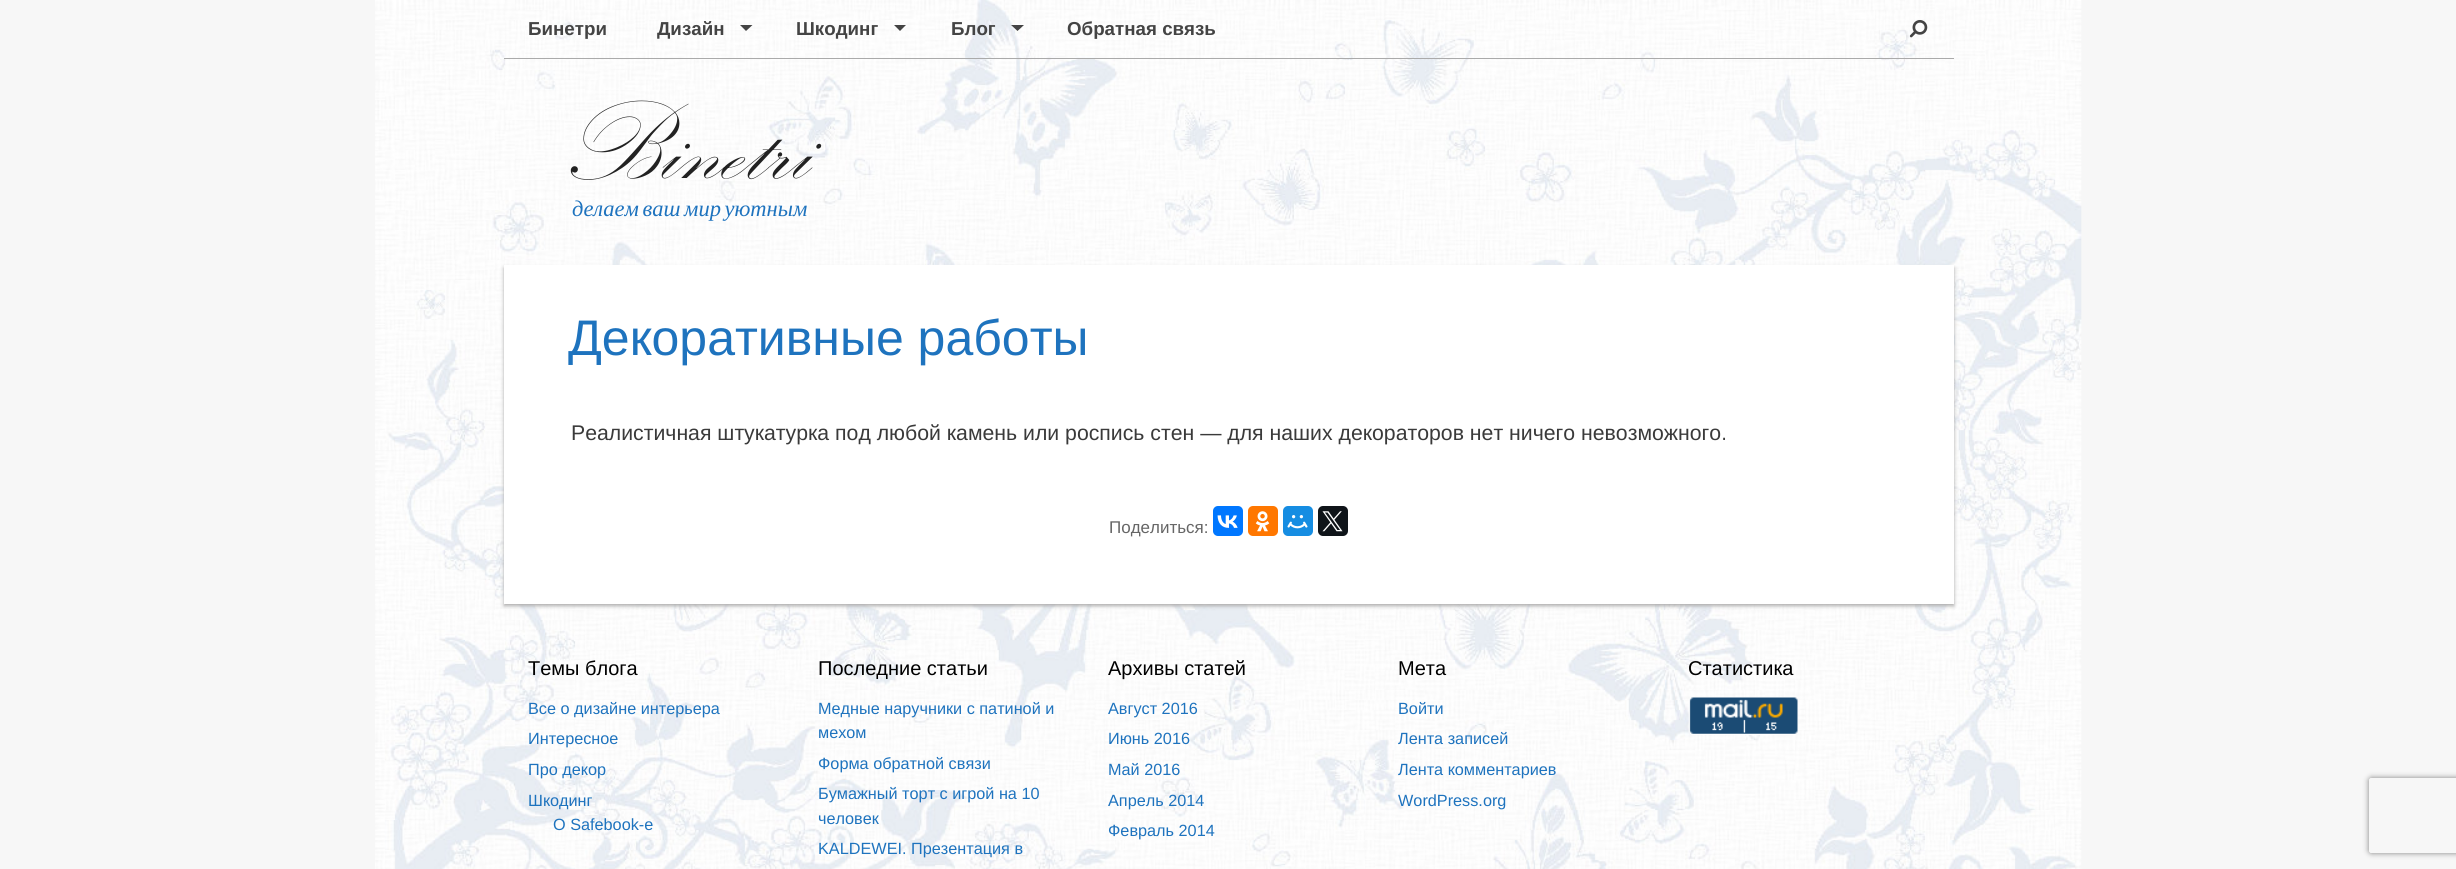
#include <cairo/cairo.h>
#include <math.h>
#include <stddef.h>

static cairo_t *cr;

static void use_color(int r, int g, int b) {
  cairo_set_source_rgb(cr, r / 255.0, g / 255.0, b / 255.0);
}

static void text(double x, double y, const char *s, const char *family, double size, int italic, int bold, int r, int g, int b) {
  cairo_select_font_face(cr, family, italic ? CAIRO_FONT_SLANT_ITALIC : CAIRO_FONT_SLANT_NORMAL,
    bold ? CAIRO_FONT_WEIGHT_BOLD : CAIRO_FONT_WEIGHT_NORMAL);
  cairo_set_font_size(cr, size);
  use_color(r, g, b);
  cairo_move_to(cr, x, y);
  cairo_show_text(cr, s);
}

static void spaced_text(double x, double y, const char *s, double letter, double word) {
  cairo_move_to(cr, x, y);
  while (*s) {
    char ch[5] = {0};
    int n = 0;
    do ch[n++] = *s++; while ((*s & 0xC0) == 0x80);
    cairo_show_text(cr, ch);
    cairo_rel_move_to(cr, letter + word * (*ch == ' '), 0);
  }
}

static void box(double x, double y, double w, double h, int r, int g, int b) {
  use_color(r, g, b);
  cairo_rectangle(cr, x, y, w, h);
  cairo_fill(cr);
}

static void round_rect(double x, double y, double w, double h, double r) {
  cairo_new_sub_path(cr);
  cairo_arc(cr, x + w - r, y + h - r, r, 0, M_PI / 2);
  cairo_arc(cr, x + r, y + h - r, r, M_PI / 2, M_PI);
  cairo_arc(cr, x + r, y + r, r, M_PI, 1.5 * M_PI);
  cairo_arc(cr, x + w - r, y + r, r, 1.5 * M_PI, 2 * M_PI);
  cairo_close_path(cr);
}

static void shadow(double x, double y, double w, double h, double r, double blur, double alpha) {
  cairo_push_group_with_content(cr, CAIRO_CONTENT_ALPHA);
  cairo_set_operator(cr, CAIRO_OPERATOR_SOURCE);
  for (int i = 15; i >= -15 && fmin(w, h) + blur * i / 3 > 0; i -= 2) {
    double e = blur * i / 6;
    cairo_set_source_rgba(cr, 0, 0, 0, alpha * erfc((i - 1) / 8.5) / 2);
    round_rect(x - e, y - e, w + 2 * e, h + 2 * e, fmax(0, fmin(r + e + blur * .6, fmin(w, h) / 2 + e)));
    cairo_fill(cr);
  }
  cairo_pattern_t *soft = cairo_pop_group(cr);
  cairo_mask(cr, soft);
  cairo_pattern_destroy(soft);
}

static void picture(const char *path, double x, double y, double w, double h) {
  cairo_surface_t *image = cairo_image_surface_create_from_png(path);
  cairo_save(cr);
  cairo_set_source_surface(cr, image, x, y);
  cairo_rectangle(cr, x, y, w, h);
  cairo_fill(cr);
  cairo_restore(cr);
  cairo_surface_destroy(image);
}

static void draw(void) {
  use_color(247, 247, 247);
  cairo_paint(cr);
  picture("img_01.png", 375, 0, 1707, 869);
  box(504, 58, 1450, 1, 170, 170, 170);
  use_color(68, 68, 68);
  cairo_new_path(cr);
  cairo_move_to(cr, 740, 25);
  cairo_line_to(cr, 752.5, 25);
  cairo_line_to(cr, 746, 31);
  cairo_close_path(cr);
  cairo_fill(cr);
  cairo_new_path(cr);
  cairo_move_to(cr, 894, 25);
  cairo_line_to(cr, 906, 25);
  cairo_line_to(cr, 900, 31);
  cairo_close_path(cr);
  cairo_fill(cr);
  cairo_new_path(cr);
  cairo_move_to(cr, 1011, 25);
  cairo_line_to(cr, 1024, 25);
  cairo_line_to(cr, 1017.5, 31);
  cairo_close_path(cr);
  cairo_fill(cr);
  picture("img_02.png", 1909, 20, 19, 18);
  use_color(172, 171, 171);
  shadow(504, 268, 1450, 338, 0, 2, 1);
  box(504, 265, 1450, 339, 255, 255, 255);
  use_color(0, 119, 255);
  round_rect(1213, 506, 30, 30, 5);
  cairo_fill(cr);
  picture("img_03.png", 1217, 515, 21, 13);
  use_color(255, 119, 0);
  round_rect(1248, 506, 30, 30, 5);
  cairo_fill(cr);
  picture("img_04.png", 1255, 511, 15, 21);
  use_color(22, 141, 226);
  round_rect(1283, 506, 30, 30, 5);
  cairo_fill(cr);
  picture("img_05.png", 1287, 515, 21, 14);
  use_color(15, 20, 25);
  round_rect(1318, 506, 30, 30, 5);
  cairo_fill(cr);
  picture("img_06.png", 1322, 511, 21, 21);
  picture("img_07.png", 1688, 697, 110, 38);
  cairo_save(cr);
  cairo_set_fill_rule(cr, CAIRO_FILL_RULE_EVEN_ODD);
  cairo_new_path(cr);
  cairo_move_to(cr, 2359, 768);
  cairo_line_to(cr, 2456, 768);
  cairo_line_to(cr, 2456, 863);
  cairo_line_to(cr, 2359, 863);
  cairo_close_path(cr);
  cairo_move_to(cr, 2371.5, 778);
  cairo_line_to(cr, 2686.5, 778);
  cairo_curve_to(cr, 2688, 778, 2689, 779, 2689, 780.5);
  cairo_line_to(cr, 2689, 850.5);
  cairo_curve_to(cr, 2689, 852, 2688, 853, 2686.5, 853);
  cairo_line_to(cr, 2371.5, 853);
  cairo_curve_to(cr, 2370, 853, 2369, 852, 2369, 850.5);
  cairo_line_to(cr, 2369, 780.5);
  cairo_curve_to(cr, 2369, 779, 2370, 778, 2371.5, 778);
  cairo_close_path(cr);
  cairo_clip(cr);
  use_color(128, 128, 128);
  shadow(2369, 778, 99, 75, 2.5, 3, 1);
  cairo_restore(cr);
  text(528, 35, "Бинетри", "Liberation Sans", 18.75, 0, 1, 68, 68, 68);
  text(657, 35, "Дизайн", "Liberation Sans", 18.75, 0, 1, 68, 68, 68);
  text(796, 35, "Шкодинг", "Liberation Sans", 18.75, 0, 1, 68, 68, 68);
  text(951, 35, "Блог", "Liberation Sans", 18.75, 0, 1, 68, 68, 68);
  text(1067, 35, "Обратная связь", "Liberation Sans", 18.75, 0, 1, 68, 68, 68);
  text(553, 178, "Binetri", "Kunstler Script", 112.5, 0, 0, 34, 34, 34);
  cairo_select_font_face(cr, "Liberation Serif", CAIRO_FONT_SLANT_ITALIC, CAIRO_FONT_WEIGHT_NORMAL);
  cairo_set_font_size(cr, 22.5);
  use_color(30, 115, 190);
  spaced_text(572, 216, "делаем ваш мир уютным", 0, -2);
  text(568, 355, "Декоративные работы", "Liberation Sans", 50, 0, 0, 30, 115, 190);
  text(571, 440, "Реалистичная штукатурка под любой камень или роспись стен — для наших декораторов нет ничего невозможного.", "Liberation Sans", 21.25, 0, 0, 58, 58, 58);
  text(1109, 533, "Поделиться:", "Liberation Sans", 17, 0, 0, 102, 102, 102);
  text(528, 675, "Темы блога", "Liberation Sans", 20, 0, 0, 0, 0, 0);
  text(528, 714, "Все о дизайне интерьера", "Liberation Sans", 16.25, 0, 0, 30, 115, 190);
  text(528, 744, "Интересное", "Liberation Sans", 16.25, 0, 0, 30, 115, 190);
  text(528, 775, "Про декор", "Liberation Sans", 16.25, 0, 0, 30, 115, 190);
  text(528, 806, "Шкодинг", "Liberation Sans", 16.25, 0, 0, 30, 115, 190);
  text(553, 830, "О Safebook-е", "Liberation Sans", 16.25, 0, 0, 30, 115, 190);
  text(818, 675, "Последние статьи", "Liberation Sans", 20, 0, 0, 0, 0, 0);
  text(818, 714, "Медные наручники с патиной и", "Liberation Sans", 16.25, 0, 0, 30, 115, 190);
  text(818, 738, "мехом", "Liberation Sans", 16.25, 0, 0, 30, 115, 190);
  text(818, 769, "Форма обратной связи", "Liberation Sans", 16.25, 0, 0, 30, 115, 190);
  text(818, 799, "Бумажный торт с игрой на 10", "Liberation Sans", 16.25, 0, 0, 30, 115, 190);
  text(818, 824, "человек", "Liberation Sans", 16.25, 0, 0, 30, 115, 190);
  text(818, 854, "KALDEWEI. Презентация в", "Liberation Sans", 16.25, 0, 0, 30, 115, 190);
  text(1108, 675, "Архивы статей", "Liberation Sans", 20, 0, 0, 0, 0, 0);
  text(1108, 714, "Август 2016", "Liberation Sans", 16.25, 0, 0, 30, 115, 190);
  text(1108, 744, "Июнь 2016", "Liberation Sans", 16.25, 0, 0, 30, 115, 190);
  text(1108, 775, "Май 2016", "Liberation Sans", 16.25, 0, 0, 30, 115, 190);
  text(1108, 806, "Апрель 2014", "Liberation Sans", 16.25, 0, 0, 30, 115, 190);
  text(1108, 836, "Февраль 2014", "Liberation Sans", 16.25, 0, 0, 30, 115, 190);
  text(1398, 675, "Мета", "Liberation Sans", 20, 0, 0, 0, 0, 0);
  text(1398, 714, "Войти", "Liberation Sans", 16.25, 0, 0, 30, 115, 190);
  text(1398, 744, "Лента записей", "Liberation Sans", 16.25, 0, 0, 30, 115, 190);
  text(1398, 775, "Лента комментариев", "Liberation Sans", 16.25, 0, 0, 30, 115, 190);
  text(1398, 806, "WordPress.org", "Liberation Sans", 16.25, 0, 0, 30, 115, 190);
  text(1688, 675, "Статистика", "Liberation Sans", 20, 0, 0, 0, 0, 0);
}

int main(void) {
  cairo_surface_t *surface = cairo_image_surface_create(CAIRO_FORMAT_RGB24, 2456, 869);
  cr = cairo_create(surface);
  cairo_font_options_t *options = cairo_font_options_create();
  cairo_font_options_set_hint_metrics(options, CAIRO_HINT_METRICS_OFF);
  cairo_font_options_set_hint_style(options, CAIRO_HINT_STYLE_NONE);
  cairo_set_font_options(cr, options);
  cairo_set_miter_limit(cr, 4);
  draw();
  cairo_surface_write_to_png(surface, "out.png");
  cairo_font_options_destroy(options);
  cairo_destroy(cr);
  cairo_surface_destroy(surface);
  return 0;
}
